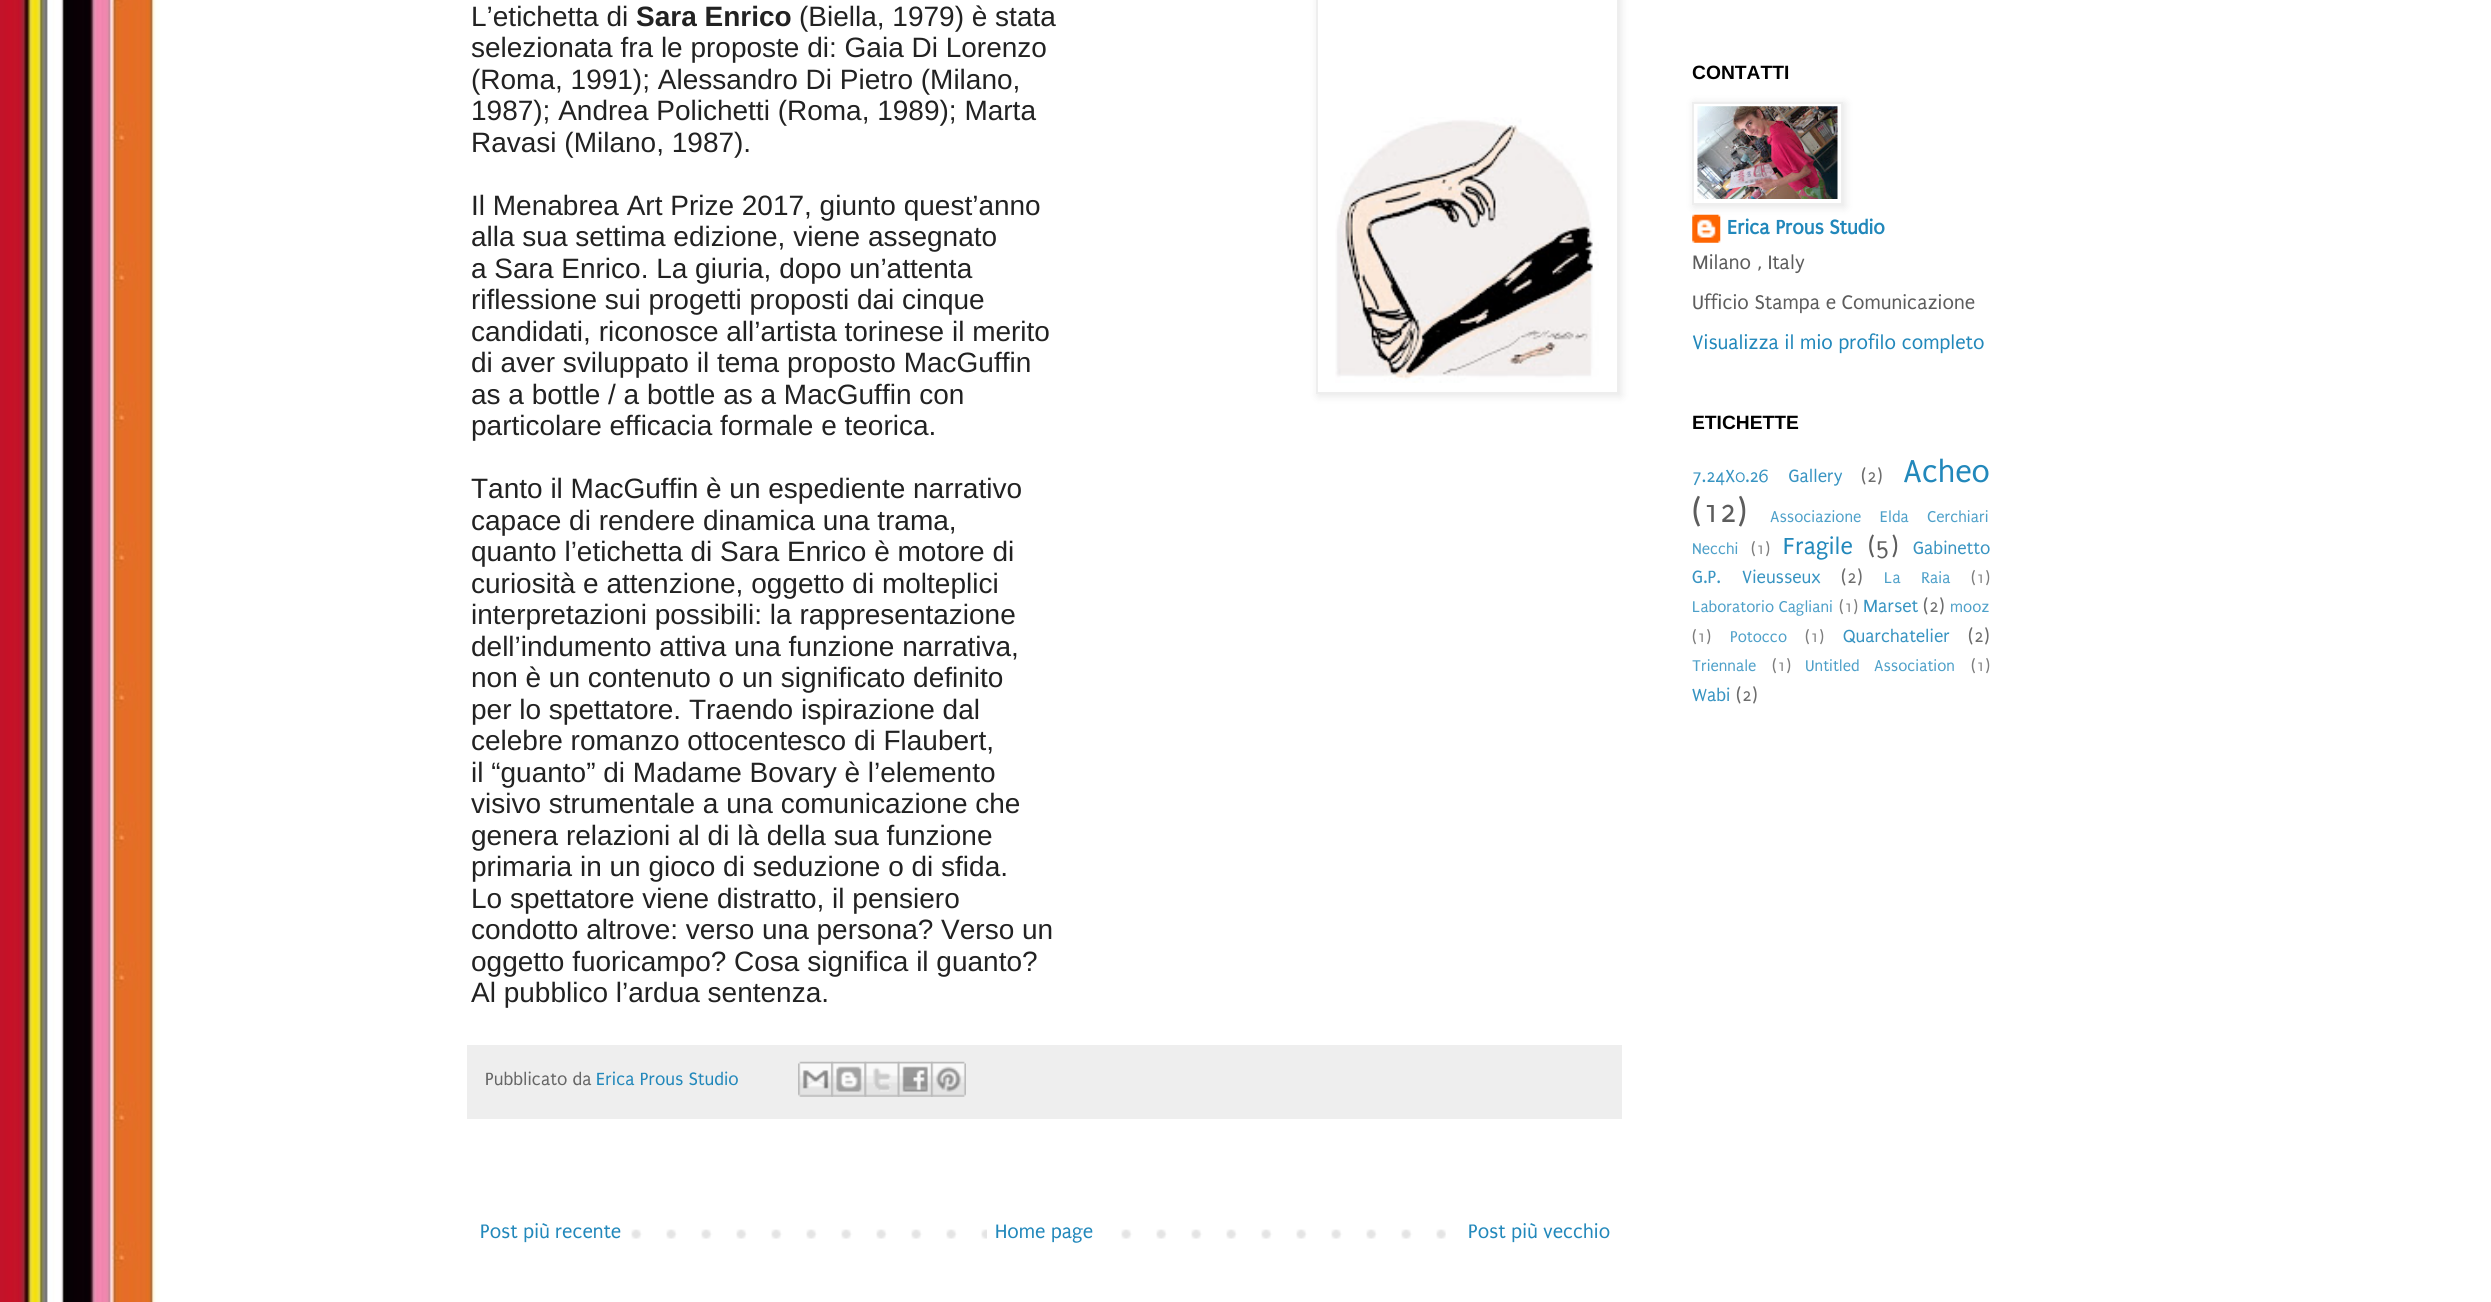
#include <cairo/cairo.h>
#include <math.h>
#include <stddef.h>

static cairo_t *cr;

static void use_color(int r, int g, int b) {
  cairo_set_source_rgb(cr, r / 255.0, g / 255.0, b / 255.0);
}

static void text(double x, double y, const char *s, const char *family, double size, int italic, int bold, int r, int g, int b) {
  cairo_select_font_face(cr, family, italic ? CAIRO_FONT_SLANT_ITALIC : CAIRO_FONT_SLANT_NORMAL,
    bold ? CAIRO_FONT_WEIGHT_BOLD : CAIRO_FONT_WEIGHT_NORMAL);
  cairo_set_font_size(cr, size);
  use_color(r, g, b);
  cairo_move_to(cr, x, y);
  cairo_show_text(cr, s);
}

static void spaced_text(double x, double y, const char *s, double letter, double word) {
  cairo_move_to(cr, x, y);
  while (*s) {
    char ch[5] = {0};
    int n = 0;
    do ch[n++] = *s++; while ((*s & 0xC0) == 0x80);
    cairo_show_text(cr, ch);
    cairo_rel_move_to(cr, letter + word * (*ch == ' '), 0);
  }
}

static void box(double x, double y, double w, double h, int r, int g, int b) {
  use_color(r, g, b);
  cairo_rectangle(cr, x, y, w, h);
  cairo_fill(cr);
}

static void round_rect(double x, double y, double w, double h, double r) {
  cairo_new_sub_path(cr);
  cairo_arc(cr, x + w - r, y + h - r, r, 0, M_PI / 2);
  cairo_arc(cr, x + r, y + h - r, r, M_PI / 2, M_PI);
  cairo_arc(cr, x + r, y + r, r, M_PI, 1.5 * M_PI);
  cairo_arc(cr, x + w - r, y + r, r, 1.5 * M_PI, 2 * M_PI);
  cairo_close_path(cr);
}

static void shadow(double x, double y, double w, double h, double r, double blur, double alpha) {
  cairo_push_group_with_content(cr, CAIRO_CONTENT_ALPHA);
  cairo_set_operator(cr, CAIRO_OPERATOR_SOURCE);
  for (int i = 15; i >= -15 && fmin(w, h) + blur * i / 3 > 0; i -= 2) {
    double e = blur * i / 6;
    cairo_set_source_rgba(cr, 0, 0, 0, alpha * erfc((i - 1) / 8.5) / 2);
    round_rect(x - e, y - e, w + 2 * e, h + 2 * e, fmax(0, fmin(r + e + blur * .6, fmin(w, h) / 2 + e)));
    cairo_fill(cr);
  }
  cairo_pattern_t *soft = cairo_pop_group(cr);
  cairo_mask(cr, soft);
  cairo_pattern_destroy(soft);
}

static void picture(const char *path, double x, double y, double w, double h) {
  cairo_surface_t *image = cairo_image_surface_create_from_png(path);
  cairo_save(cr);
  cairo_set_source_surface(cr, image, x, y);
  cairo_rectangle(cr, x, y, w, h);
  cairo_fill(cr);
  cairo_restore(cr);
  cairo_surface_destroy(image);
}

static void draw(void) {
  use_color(255, 255, 255);
  cairo_paint(cr);
  picture("img_01.png", 0, 0, 160, 1302);
  use_color(0, 0, 0);
  shadow(1318, -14, 303, 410, 0, 4.5, 0.1);
  use_color(255, 255, 255);
  cairo_rectangle(cr, 1317, -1, 301, 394);
  cairo_fill_preserve(cr);
  use_color(238, 238, 238);
  cairo_stroke(cr);
  picture("img_02.png", 1335, 117, 264, 266);
  box(467, 1045, 1155, 74, 238, 238, 238);
  picture("img_03.png", 798, 1061, 35, 36);
  picture("img_04.png", 831, 1061, 36, 36);
  picture("img_05.png", 864, 1061, 36, 36);
  picture("img_06.png", 897, 1061, 36, 36);
  picture("img_07.png", 931, 1061, 35, 36);
  picture("img_08.png", 631, 1229, 815, 10);
  box(987, 1229, 110, 10, 255, 255, 255);
  picture("img_10.png", 1692, 214, 29, 29);
  use_color(0, 0, 0);
  shadow(1694, 103, 151, 104, 0, 4.5, 0.1);
  use_color(255, 255, 255);
  cairo_rectangle(cr, 1693, 103, 149, 101);
  cairo_fill_preserve(cr);
  use_color(238, 238, 238);
  cairo_stroke(cr);
  picture("img_09.png", 1697, 106, 141, 93);
  text(471, 26, "L’etichetta di", "Liberation Sans", 28, 0, 0, 34, 34, 34);
  text(636, 26, "Sara Enrico", "Liberation Sans", 28, 0, 1, 34, 34, 34);
  text(799, 26, "(Biella, 1979) è stata", "Liberation Sans", 28, 0, 0, 34, 34, 34);
  text(471, 57, "selezionata fra le proposte di: Gaia Di Lorenzo", "Liberation Sans", 28, 0, 0, 34, 34, 34);
  text(471, 89, "(Roma, 1991); Alessandro Di Pietro (Milano,", "Liberation Sans", 28, 0, 0, 34, 34, 34);
  text(471, 120, "1987); Andrea Polichetti (Roma, 1989); Marta", "Liberation Sans", 28, 0, 0, 34, 34, 34);
  text(471, 152, "Ravasi (Milano, 1987).", "Liberation Sans", 28, 0, 0, 34, 34, 34);
  text(471, 215, "Il Menabrea Art Prize 2017, giunto quest’anno", "Liberation Sans", 28, 0, 0, 34, 34, 34);
  text(471, 246, "alla sua settima edizione, viene assegnato", "Liberation Sans", 28, 0, 0, 34, 34, 34);
  text(471, 278, "a Sara Enrico. La giuria, dopo un’attenta", "Liberation Sans", 28, 0, 0, 34, 34, 34);
  text(471, 309, "riflessione sui progetti proposti dai cinque", "Liberation Sans", 28, 0, 0, 34, 34, 34);
  text(471, 341, "candidati, riconosce all’artista torinese il merito", "Liberation Sans", 28, 0, 0, 34, 34, 34);
  text(471, 372, "di aver sviluppato il tema proposto MacGuffin", "Liberation Sans", 28, 0, 0, 34, 34, 34);
  text(471, 404, "as a bottle / a bottle as a MacGuffin con", "Liberation Sans", 28, 0, 0, 34, 34, 34);
  text(471, 435, "particolare efficacia formale e teorica.", "Liberation Sans", 28, 0, 0, 34, 34, 34);
  text(471, 498, "Tanto il MacGuffin è un espediente narrativo", "Liberation Sans", 28, 0, 0, 34, 34, 34);
  text(471, 530, "capace di rendere dinamica una trama,", "Liberation Sans", 28, 0, 0, 34, 34, 34);
  text(471, 561, "quanto l’etichetta di Sara Enrico è motore di", "Liberation Sans", 28, 0, 0, 34, 34, 34);
  text(471, 593, "curiosità e attenzione, oggetto di molteplici", "Liberation Sans", 28, 0, 0, 34, 34, 34);
  text(471, 624, "interpretazioni possibili: la rappresentazione", "Liberation Sans", 28, 0, 0, 34, 34, 34);
  text(471, 656, "dell’indumento attiva una funzione narrativa,", "Liberation Sans", 28, 0, 0, 34, 34, 34);
  text(471, 687, "non è un contenuto o un significato definito", "Liberation Sans", 28, 0, 0, 34, 34, 34);
  text(471, 719, "per lo spettatore. Traendo ispirazione dal", "Liberation Sans", 28, 0, 0, 34, 34, 34);
  text(471, 750, "celebre romanzo ottocentesco di Flaubert,", "Liberation Sans", 28, 0, 0, 34, 34, 34);
  text(471, 782, "il “guanto” di Madame Bovary è l’elemento", "Liberation Sans", 28, 0, 0, 34, 34, 34);
  text(471, 813, "visivo strumentale a una comunicazione che", "Liberation Sans", 28, 0, 0, 34, 34, 34);
  text(471, 845, "genera relazioni al di là della sua funzione", "Liberation Sans", 28, 0, 0, 34, 34, 34);
  text(471, 876, "primaria in un gioco di seduzione o di sfida.", "Liberation Sans", 28, 0, 0, 34, 34, 34);
  text(471, 908, "Lo spettatore viene distratto, il pensiero", "Liberation Sans", 28, 0, 0, 34, 34, 34);
  text(471, 939, "condotto altrove: verso una persona? Verso un", "Liberation Sans", 28, 0, 0, 34, 34, 34);
  text(471, 971, "oggetto fuoricampo? Cosa significa il guanto?", "Liberation Sans", 28, 0, 0, 34, 34, 34);
  text(471, 1002, "Al pubblico l’ardua sentenza.", "Liberation Sans", 28, 0, 0, 34, 34, 34);
  text(485, 1085, "Pubblicato da", "Puritan", 19, 0, 0, 102, 102, 102);
  text(596, 1085, "Erica Prous Studio", "Puritan", 19, 0, 0, 34, 136, 187);
  text(480, 1238, "Post più recente", "Puritan", 21, 0, 0, 34, 136, 187);
  text(995, 1238, "Home page", "Puritan", 21, 0, 0, 34, 136, 187);
  text(1468, 1238, "Post più vecchio", "Puritan", 21, 0, 0, 34, 136, 187);
  text(1692, 79, "CONTATTI", "Liberation Sans", 19.25, 0, 1, 0, 0, 0);
  text(1727, 234, "Erica Prous Studio", "Puritan", 21, 0, 1, 34, 136, 187);
  text(1692, 269, "Milano , Italy", "Puritan", 21, 0, 0, 93, 93, 93);
  text(1692, 309, "Ufficio Stampa e Comunicazione", "Puritan", 21, 0, 0, 93, 93, 93);
  text(1692, 349, "Visualizza il mio profilo completo", "Puritan", 21, 0, 0, 34, 136, 187);
  text(1692, 429, "ETICHETTE", "Liberation Sans", 19.25, 0, 1, 0, 0, 0);
  cairo_select_font_face(cr, "Puritan", CAIRO_FONT_SLANT_NORMAL, CAIRO_FONT_WEIGHT_NORMAL);
  cairo_set_font_size(cr, 19);
  use_color(56, 148, 194);
  spaced_text(1692, 482, "7.24X0.26 Gallery", 0, 15);
  text(1861, 482, "(2)", "Puritan", 19, 0, 0, 109, 109, 109);
  text(1903, 482, "Acheo", "Puritan", 33.5, 0, 0, 34, 136, 187);
  text(1692, 522, "(12)", "Puritan", 33.5, 0, 0, 93, 93, 93);
  cairo_set_font_size(cr, 16.75);
  use_color(78, 160, 201);
  spaced_text(1770, 522, "Associazione Elda Cerchiari", 0, 14);
  text(1692, 554, "Necchi", "Puritan", 16.75, 0, 0, 78, 160, 201);
  text(1751, 554, "(1)", "Puritan", 16.75, 0, 0, 125, 125, 125);
  text(1783, 554, "Fragile", "Puritan", 25, 0, 0, 34, 136, 187);
  text(1868, 554, "(5)", "Puritan", 25, 0, 0, 93, 93, 93);
  text(1913, 554, "Gabinetto", "Puritan", 19, 0, 0, 56, 148, 194);
  spaced_text(1692, 583, "G.P. Vieusseux", 0, 16);
  text(1841, 583, "(2)", "Puritan", 19, 0, 0, 109, 109, 109);
  cairo_set_font_size(cr, 16.75);
  use_color(78, 160, 201);
  spaced_text(1884, 583, "La Raia", 0, 16);
  text(1971, 583, "(1)", "Puritan", 16.75, 0, 0, 125, 125, 125);
  text(1692, 612, "Laboratorio Cagliani", "Puritan", 16.75, 0, 0, 78, 160, 201);
  text(1839, 612, "(1)", "Puritan", 16.75, 0, 0, 125, 125, 125);
  text(1863, 612, "Marset", "Puritan", 19, 0, 0, 56, 148, 194);
  text(1923, 612, "(2)", "Puritan", 19, 0, 0, 109, 109, 109);
  text(1950, 612, "mooz", "Puritan", 16.75, 0, 0, 78, 160, 201);
  text(1692, 642, "(1)", "Puritan", 16.75, 0, 0, 125, 125, 125);
  text(1730, 642, "Potocco", "Puritan", 16.75, 0, 0, 78, 160, 201);
  text(1805, 642, "(1)", "Puritan", 16.75, 0, 0, 125, 125, 125);
  text(1843, 642, "Quarchatelier", "Puritan", 19, 0, 0, 56, 148, 194);
  text(1968, 642, "(2)", "Puritan", 19, 0, 0, 109, 109, 109);
  text(1692, 671, "Triennale", "Puritan", 16.75, 0, 0, 78, 160, 201);
  text(1772, 671, "(1)", "Puritan", 16.75, 0, 0, 125, 125, 125);
  use_color(78, 160, 201);
  spaced_text(1805, 671, "Untitled Association", 0, 10);
  text(1971, 671, "(1)", "Puritan", 16.75, 0, 0, 125, 125, 125);
  text(1692, 701, "Wabi", "Puritan", 19, 0, 0, 56, 148, 194);
  text(1736, 701, "(2)", "Puritan", 19, 0, 0, 109, 109, 109);
}

int main(void) {
  cairo_surface_t *surface = cairo_image_surface_create(CAIRO_FORMAT_RGB24, 2491, 1302);
  cr = cairo_create(surface);
  cairo_font_options_t *options = cairo_font_options_create();
  cairo_font_options_set_hint_metrics(options, CAIRO_HINT_METRICS_OFF);
  cairo_font_options_set_hint_style(options, CAIRO_HINT_STYLE_NONE);
  cairo_set_font_options(cr, options);
  cairo_set_miter_limit(cr, 4);
  draw();
  cairo_surface_write_to_png(surface, "out.png");
  cairo_font_options_destroy(options);
  cairo_destroy(cr);
  cairo_surface_destroy(surface);
  return 0;
}
